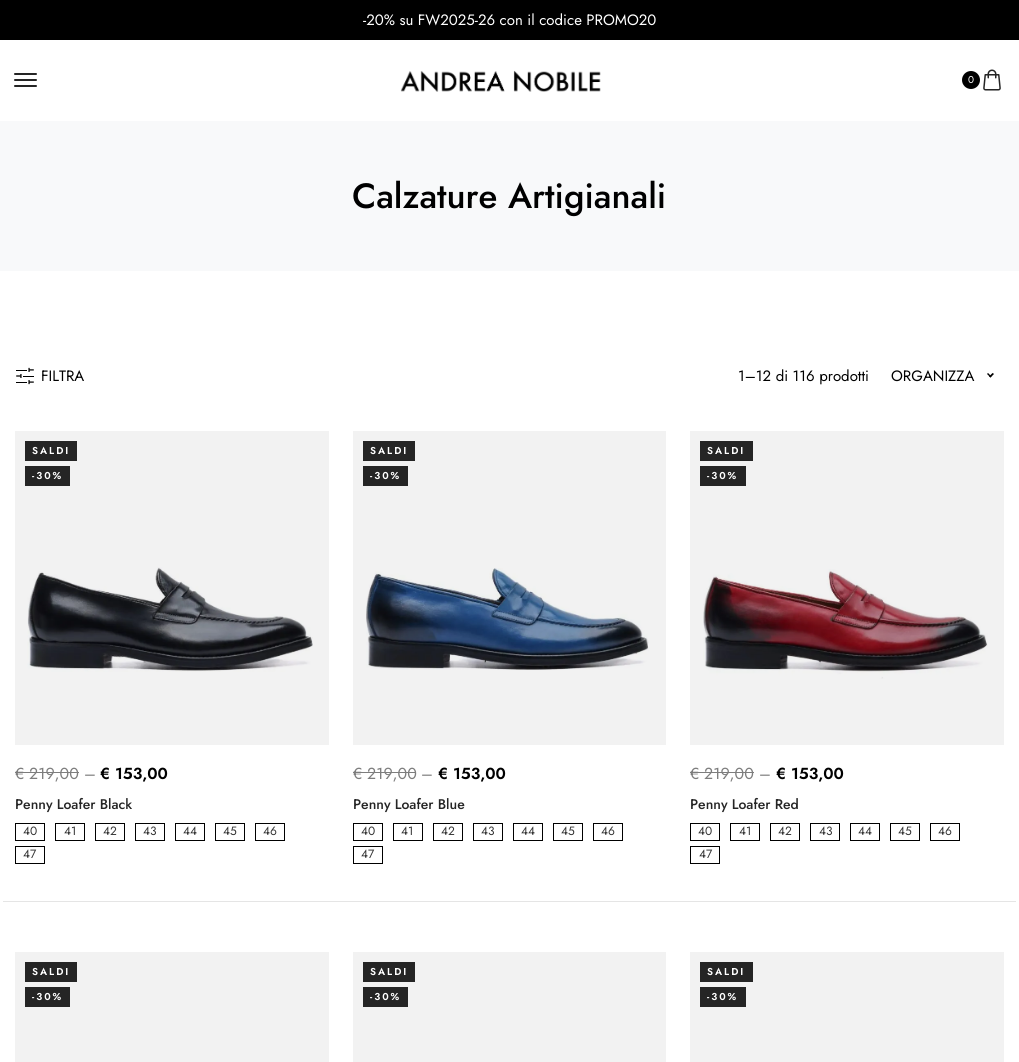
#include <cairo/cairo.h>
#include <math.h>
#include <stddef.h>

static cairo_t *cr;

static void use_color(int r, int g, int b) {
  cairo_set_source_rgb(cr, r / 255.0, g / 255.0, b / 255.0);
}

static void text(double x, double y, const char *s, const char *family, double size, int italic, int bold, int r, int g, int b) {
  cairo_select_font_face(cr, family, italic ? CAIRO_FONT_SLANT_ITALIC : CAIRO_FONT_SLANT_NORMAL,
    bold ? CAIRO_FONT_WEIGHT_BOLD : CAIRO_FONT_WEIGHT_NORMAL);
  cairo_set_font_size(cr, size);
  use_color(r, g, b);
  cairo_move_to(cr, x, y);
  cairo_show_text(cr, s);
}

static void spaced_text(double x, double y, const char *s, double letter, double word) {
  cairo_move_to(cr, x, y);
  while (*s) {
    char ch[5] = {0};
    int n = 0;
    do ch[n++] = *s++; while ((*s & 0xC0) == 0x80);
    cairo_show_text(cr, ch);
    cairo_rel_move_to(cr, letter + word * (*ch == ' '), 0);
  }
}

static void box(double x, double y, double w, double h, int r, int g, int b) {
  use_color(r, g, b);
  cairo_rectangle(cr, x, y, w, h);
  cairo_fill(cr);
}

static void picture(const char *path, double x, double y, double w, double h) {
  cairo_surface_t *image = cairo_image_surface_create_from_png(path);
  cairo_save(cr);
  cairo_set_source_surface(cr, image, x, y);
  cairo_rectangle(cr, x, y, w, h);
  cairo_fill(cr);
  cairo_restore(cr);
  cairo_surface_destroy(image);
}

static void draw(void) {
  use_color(255, 255, 255);
  cairo_paint(cr);
  box(690, 431, 314, 314, 242, 242, 242);
  box(353, 431, 313, 314, 242, 242, 242);
  box(15, 431, 314, 314, 242, 242, 242);
  box(0, 0, 1019, 40, 0, 0, 0);
  cairo_new_path(cr);
  cairo_move_to(cr, 15, 80);
  cairo_line_to(cr, 36, 80);
  cairo_move_to(cr, 15, 74);
  cairo_line_to(cr, 36, 74);
  cairo_move_to(cr, 15, 86);
  cairo_line_to(cr, 36, 86);
  use_color(37, 37, 37);
  cairo_set_line_cap(cr, CAIRO_LINE_CAP_ROUND);
  cairo_set_line_join(cr, CAIRO_LINE_JOIN_ROUND);
  cairo_stroke(cr);
  picture("img_01.png", 400, 70, 201, 22);
  use_color(0, 0, 0);
  cairo_arc(cr, 971, 80, 9, 0, 2 * M_PI);
  cairo_fill(cr);
  picture("img_02.png", 983, 69, 18, 22);
  box(0, 121, 1019, 150, 248, 249, 250);
  picture("img_03.png", 16, 367, 18, 18);
  use_color(0, 0, 0);
  cairo_new_path(cr);
  cairo_move_to(cr, 992.5, 373);
  cairo_line_to(cr, 994, 374);
  cairo_line_to(cr, 990.5, 377.5);
  cairo_line_to(cr, 989, 376.5);
  cairo_close_path(cr);
  cairo_fill(cr);
  cairo_new_path(cr);
  cairo_move_to(cr, 988, 373);
  cairo_line_to(cr, 991.5, 376.5);
  cairo_line_to(cr, 990.5, 377.5);
  cairo_line_to(cr, 987, 374);
  cairo_close_path(cr);
  cairo_fill(cr);
  box(3, 901, 1013, 1, 229, 229, 229);
  box(25, 441, 52, 20, 37, 37, 37);
  box(25, 466, 45, 20, 37, 37, 37);
  picture("img_04.png", 27, 567, 286, 105);
  box(15, 772, 64, 1, 125, 125, 125);
  cairo_rectangle(cr, 15.5, 823.5, 29, 17);
  use_color(0, 0, 0);
  cairo_set_line_width(cr, 1);
  cairo_set_line_cap(cr, CAIRO_LINE_CAP_BUTT);
  cairo_set_line_join(cr, CAIRO_LINE_JOIN_MITER);
  cairo_stroke(cr);
  cairo_rectangle(cr, 55.5, 823.5, 29, 17);
  cairo_stroke(cr);
  cairo_rectangle(cr, 95.5, 823.5, 29, 17);
  cairo_stroke(cr);
  cairo_rectangle(cr, 135.5, 823.5, 29, 17);
  cairo_stroke(cr);
  cairo_rectangle(cr, 175.5, 823.5, 29, 17);
  cairo_stroke(cr);
  cairo_rectangle(cr, 215.5, 823.5, 29, 17);
  cairo_stroke(cr);
  cairo_rectangle(cr, 255.5, 823.5, 29, 17);
  cairo_stroke(cr);
  cairo_rectangle(cr, 15.5, 846.5, 29, 17);
  cairo_stroke(cr);
  box(363, 441, 52, 20, 37, 37, 37);
  box(363, 466, 45, 20, 37, 37, 37);
  picture("img_05.png", 366, 568, 283, 102);
  box(353, 772, 63, 1, 125, 125, 125);
  cairo_rectangle(cr, 353.5, 823.5, 29, 17);
  use_color(0, 0, 0);
  cairo_stroke(cr);
  cairo_rectangle(cr, 393.5, 823.5, 29, 17);
  cairo_stroke(cr);
  cairo_rectangle(cr, 433.5, 823.5, 29, 17);
  cairo_stroke(cr);
  cairo_rectangle(cr, 473.5, 823.5, 29, 17);
  cairo_stroke(cr);
  cairo_rectangle(cr, 513.5, 823.5, 29, 17);
  cairo_stroke(cr);
  cairo_rectangle(cr, 553.5, 823.5, 29, 17);
  cairo_stroke(cr);
  cairo_rectangle(cr, 593.5, 823.5, 29, 17);
  cairo_stroke(cr);
  cairo_rectangle(cr, 353.5, 846.5, 29, 17);
  cairo_stroke(cr);
  box(700, 441, 53, 20, 37, 37, 37);
  box(700, 466, 46, 20, 37, 37, 37);
  picture("img_06.png", 703, 569, 285, 110);
  box(690, 772, 64, 1, 125, 125, 125);
  cairo_rectangle(cr, 690.5, 823.5, 29, 17);
  use_color(0, 0, 0);
  cairo_stroke(cr);
  cairo_rectangle(cr, 730.5, 823.5, 29, 17);
  cairo_stroke(cr);
  cairo_rectangle(cr, 770.5, 823.5, 29, 17);
  cairo_stroke(cr);
  cairo_rectangle(cr, 810.5, 823.5, 29, 17);
  cairo_stroke(cr);
  cairo_rectangle(cr, 850.5, 823.5, 29, 17);
  cairo_stroke(cr);
  cairo_rectangle(cr, 890.5, 823.5, 29, 17);
  cairo_stroke(cr);
  cairo_rectangle(cr, 930.5, 823.5, 29, 17);
  cairo_stroke(cr);
  cairo_rectangle(cr, 690.5, 846.5, 29, 17);
  cairo_stroke(cr);
  box(15, 952, 314, 110, 242, 242, 242);
  box(25, 962, 52, 20, 37, 37, 37);
  box(25, 987, 45, 20, 37, 37, 37);
  box(353, 952, 313, 110, 242, 242, 242);
  box(363, 962, 52, 20, 37, 37, 37);
  box(363, 987, 45, 20, 37, 37, 37);
  box(690, 952, 314, 110, 242, 242, 242);
  box(700, 962, 53, 20, 37, 37, 37);
  box(700, 987, 46, 20, 37, 37, 37);
  text(363, 25, "-20% su FW2025-26 con il codice PROMO20", "Jost", 15, 0, 0, 255, 255, 255);
  text(968, 83, "0", "Jost", 10, 0, 0, 255, 255, 255);
  text(352, 208, "Calzature Artigianali", "Jost Medium", 35, 0, 0, 0, 0, 0);
  text(41, 381, "FILTRA", "Jost", 15, 0, 0, 0, 0, 0);
  text(738, 381, "1–12 di 116 prodotti", "Jost", 15, 0, 0, 0, 0, 0);
  text(891, 381, "ORGANIZZA", "Jost", 15, 0, 0, 0, 0, 0);
  cairo_select_font_face(cr, "Jost SemiBold", CAIRO_FONT_SLANT_NORMAL, CAIRO_FONT_WEIGHT_NORMAL);
  cairo_set_font_size(cr, 10);
  use_color(255, 255, 255);
  spaced_text(32, 454, "SALDI", 2, 0);
  spaced_text(32, 479, "-30%", 2, 0);
  text(15, 779, "€ 219,00", "Jost", 16, 0, 0, 125, 125, 125);
  text(84, 779, "–", "Jost", 16, 0, 0, 125, 125, 125);
  text(100, 779, "€ 153,00", "Jost SemiBold", 16, 0, 0, 0, 0, 0);
  text(15, 809, "Penny Loafer Black", "Jost Medium", 14, 0, 0, 37, 37, 37);
  text(23, 835, "40", "Jost", 12, 0, 0, 52, 52, 52);
  text(64, 835, "41", "Jost", 12, 0, 0, 52, 52, 52);
  text(103, 835, "42", "Jost", 12, 0, 0, 52, 52, 52);
  text(143, 835, "43", "Jost", 12, 0, 0, 52, 52, 52);
  text(183, 835, "44", "Jost", 12, 0, 0, 52, 52, 52);
  text(223, 835, "45", "Jost", 12, 0, 0, 52, 52, 52);
  text(263, 835, "46", "Jost", 12, 0, 0, 52, 52, 52);
  text(23, 858, "47", "Jost", 12, 0, 0, 52, 52, 52);
  cairo_select_font_face(cr, "Jost SemiBold", CAIRO_FONT_SLANT_NORMAL, CAIRO_FONT_WEIGHT_NORMAL);
  cairo_set_font_size(cr, 10);
  use_color(255, 255, 255);
  spaced_text(370, 454, "SALDI", 2, 0);
  spaced_text(370, 479, "-30%", 2, 0);
  text(353, 779, "€ 219,00", "Jost", 16, 0, 0, 125, 125, 125);
  text(421, 779, "–", "Jost", 16, 0, 0, 125, 125, 125);
  text(438, 779, "€ 153,00", "Jost SemiBold", 16, 0, 0, 0, 0, 0);
  text(353, 809, "Penny Loafer Blue", "Jost Medium", 14, 0, 0, 37, 37, 37);
  text(361, 835, "40", "Jost", 12, 0, 0, 52, 52, 52);
  text(401, 835, "41", "Jost", 12, 0, 0, 52, 52, 52);
  text(441, 835, "42", "Jost", 12, 0, 0, 52, 52, 52);
  text(481, 835, "43", "Jost", 12, 0, 0, 52, 52, 52);
  text(521, 835, "44", "Jost", 12, 0, 0, 52, 52, 52);
  text(561, 835, "45", "Jost", 12, 0, 0, 52, 52, 52);
  text(601, 835, "46", "Jost", 12, 0, 0, 52, 52, 52);
  text(361, 858, "47", "Jost", 12, 0, 0, 52, 52, 52);
  cairo_select_font_face(cr, "Jost SemiBold", CAIRO_FONT_SLANT_NORMAL, CAIRO_FONT_WEIGHT_NORMAL);
  cairo_set_font_size(cr, 10);
  use_color(255, 255, 255);
  spaced_text(707, 454, "SALDI", 2, 0);
  spaced_text(707, 479, "-30%", 2, 0);
  text(690, 779, "€ 219,00", "Jost", 16, 0, 0, 125, 125, 125);
  text(759, 779, "–", "Jost", 16, 0, 0, 125, 125, 125);
  text(776, 779, "€ 153,00", "Jost SemiBold", 16, 0, 0, 0, 0, 0);
  text(690, 809, "Penny Loafer Red", "Jost Medium", 14, 0, 0, 37, 37, 37);
  text(698, 835, "40", "Jost", 12, 0, 0, 52, 52, 52);
  text(739, 835, "41", "Jost", 12, 0, 0, 52, 52, 52);
  text(778, 835, "42", "Jost", 12, 0, 0, 52, 52, 52);
  text(819, 835, "43", "Jost", 12, 0, 0, 52, 52, 52);
  text(858, 835, "44", "Jost", 12, 0, 0, 52, 52, 52);
  text(898, 835, "45", "Jost", 12, 0, 0, 52, 52, 52);
  text(938, 835, "46", "Jost", 12, 0, 0, 52, 52, 52);
  text(699, 858, "47", "Jost", 12, 0, 0, 52, 52, 52);
  cairo_select_font_face(cr, "Jost SemiBold", CAIRO_FONT_SLANT_NORMAL, CAIRO_FONT_WEIGHT_NORMAL);
  cairo_set_font_size(cr, 10);
  use_color(255, 255, 255);
  spaced_text(32, 975, "SALDI", 2, 0);
  spaced_text(32, 1000, "-30%", 2, 0);
  spaced_text(370, 975, "SALDI", 2, 0);
  spaced_text(370, 1000, "-30%", 2, 0);
  spaced_text(707, 975, "SALDI", 2, 0);
  spaced_text(707, 1000, "-30%", 2, 0);
}

int main(void) {
  cairo_surface_t *surface = cairo_image_surface_create(CAIRO_FORMAT_RGB24, 1019, 1062);
  cr = cairo_create(surface);
  cairo_font_options_t *options = cairo_font_options_create();
  cairo_font_options_set_hint_metrics(options, CAIRO_HINT_METRICS_OFF);
  cairo_font_options_set_hint_style(options, CAIRO_HINT_STYLE_NONE);
  cairo_set_font_options(cr, options);
  cairo_set_miter_limit(cr, 4);
  draw();
  cairo_surface_write_to_png(surface, "out.png");
  cairo_font_options_destroy(options);
  cairo_destroy(cr);
  cairo_surface_destroy(surface);
  return 0;
}
